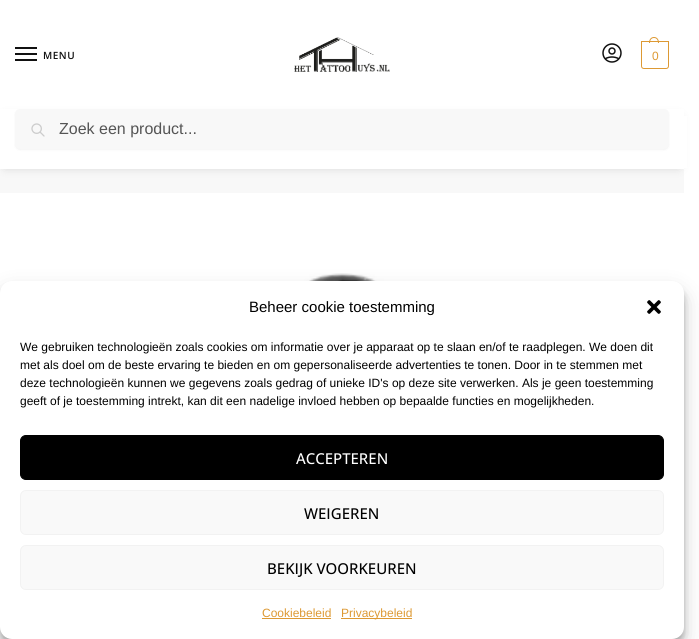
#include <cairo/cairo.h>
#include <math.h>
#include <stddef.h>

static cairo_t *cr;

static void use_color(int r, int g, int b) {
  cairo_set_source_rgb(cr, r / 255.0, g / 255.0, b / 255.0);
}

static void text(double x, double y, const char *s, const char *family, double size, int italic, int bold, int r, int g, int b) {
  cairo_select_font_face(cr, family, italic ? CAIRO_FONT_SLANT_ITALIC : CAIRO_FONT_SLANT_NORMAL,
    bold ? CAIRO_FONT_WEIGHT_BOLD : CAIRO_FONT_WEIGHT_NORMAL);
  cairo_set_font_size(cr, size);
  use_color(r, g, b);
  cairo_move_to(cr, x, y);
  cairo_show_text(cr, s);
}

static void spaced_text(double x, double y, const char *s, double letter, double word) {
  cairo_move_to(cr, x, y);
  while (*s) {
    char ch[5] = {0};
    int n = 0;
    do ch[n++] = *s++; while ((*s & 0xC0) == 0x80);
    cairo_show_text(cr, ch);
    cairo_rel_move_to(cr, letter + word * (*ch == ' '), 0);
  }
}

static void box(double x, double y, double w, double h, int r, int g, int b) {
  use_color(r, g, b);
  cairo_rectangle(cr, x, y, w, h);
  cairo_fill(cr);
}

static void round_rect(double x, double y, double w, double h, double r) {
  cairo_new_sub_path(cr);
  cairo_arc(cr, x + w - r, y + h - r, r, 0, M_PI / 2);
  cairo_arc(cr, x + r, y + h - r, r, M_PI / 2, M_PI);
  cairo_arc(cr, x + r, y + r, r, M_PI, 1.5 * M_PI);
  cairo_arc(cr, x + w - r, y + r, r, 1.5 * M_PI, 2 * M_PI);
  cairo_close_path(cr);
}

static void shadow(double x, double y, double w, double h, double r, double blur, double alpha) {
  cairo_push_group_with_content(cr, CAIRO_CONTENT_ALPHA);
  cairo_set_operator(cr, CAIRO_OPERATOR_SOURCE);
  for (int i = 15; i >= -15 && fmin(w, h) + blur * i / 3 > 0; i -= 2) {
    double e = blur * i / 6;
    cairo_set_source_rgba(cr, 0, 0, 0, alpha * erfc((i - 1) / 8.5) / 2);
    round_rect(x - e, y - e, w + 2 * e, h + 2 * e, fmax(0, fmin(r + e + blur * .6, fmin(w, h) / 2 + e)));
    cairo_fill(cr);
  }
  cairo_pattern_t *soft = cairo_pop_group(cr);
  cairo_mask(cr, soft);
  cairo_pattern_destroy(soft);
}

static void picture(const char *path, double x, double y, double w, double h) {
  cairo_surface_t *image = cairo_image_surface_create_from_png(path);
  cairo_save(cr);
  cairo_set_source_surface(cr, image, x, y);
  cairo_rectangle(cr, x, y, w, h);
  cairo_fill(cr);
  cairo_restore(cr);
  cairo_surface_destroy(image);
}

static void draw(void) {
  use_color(255, 255, 255);
  cairo_paint(cr);
  box(15, 47, 22, 2, 17, 17, 17);
  box(15, 53, 22, 2, 17, 17, 17);
  box(15, 59, 22, 2, 17, 17, 17);
  picture("img_01.png", 294, 37, 96, 35);
  picture("img_02.png", 602, 43, 20, 20);
  cairo_new_path(cr);
  cairo_move_to(cr, 641.5, 41.5);
  cairo_line_to(cr, 668.5, 41.5);
  cairo_line_to(cr, 668.5, 66);
  cairo_curve_to(cr, 668.5, 67.5, 667.5, 68.5, 666, 68.5);
  cairo_line_to(cr, 644, 68.5);
  cairo_curve_to(cr, 642.5, 68.5, 641.5, 67.5, 641.5, 66);
  cairo_close_path(cr);
  use_color(221, 153, 51);
  cairo_set_line_width(cr, 1);
  cairo_stroke(cr);
  cairo_set_fill_rule(cr, CAIRO_FILL_RULE_EVEN_ODD);
  cairo_new_path(cr);
  cairo_move_to(cr, 654, 37);
  cairo_curve_to(cr, 657.5, 37, 659, 40, 659, 43);
  cairo_line_to(cr, 649, 43);
  cairo_curve_to(cr, 649, 40, 650.5, 37, 654, 37);
  cairo_close_path(cr);
  cairo_move_to(cr, 654, 38);
  cairo_curve_to(cr, 657, 38, 658, 40.5, 658, 43);
  cairo_line_to(cr, 650, 43);
  cairo_curve_to(cr, 650, 40.5, 651, 38, 654, 38);
  cairo_close_path(cr);
  cairo_fill(cr);
  box(0, 169, 684, 24, 248, 248, 248);
  use_color(0, 0, 0);
  shadow(5, 117, 674, 50, 0, 5, 0.18);
  box(0, 109, 684, 60, 255, 255, 255);
  use_color(0, 0, 0);
  shadow(15, 110, 654, 40, 5, 1, 0.05);
  use_color(248, 248, 248);
  round_rect(15, 109, 654, 40, 5);
  cairo_fill(cr);
  picture("img_03.png", 31, 123, 14, 14);
  box(684, 116, 3, 52, 255, 255, 255);
  picture("img_04.png", 263, 273, 159, 8);
  use_color(0, 0, 0);
  shadow(0, 287, 684, 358, 12, 3, 0.23);
  shadow(0, 291, 684, 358, 12, 10, 0.19);
  use_color(255, 255, 255);
  round_rect(0, 281, 684, 358, 12);
  cairo_fill(cr);
  picture("img_05.png", 647, 300, 14, 14);
  use_color(0, 0, 0);
  round_rect(20.5, 435.5, 643, 44, 5.5);
  cairo_fill_preserve(cr);
  cairo_stroke(cr);
  use_color(249, 249, 249);
  round_rect(20.5, 490.5, 643, 44, 5.5);
  cairo_fill_preserve(cr);
  use_color(242, 242, 242);
  cairo_stroke(cr);
  use_color(249, 249, 249);
  round_rect(20.5, 545.5, 643, 44, 5.5);
  cairo_fill_preserve(cr);
  use_color(242, 242, 242);
  cairo_stroke(cr);
  box(262, 618, 69, 1, 221, 153, 51);
  box(341, 618, 71, 1, 221, 153, 51);
  cairo_select_font_face(cr, "Open Sans SemiBold", CAIRO_FONT_SLANT_NORMAL, CAIRO_FONT_WEIGHT_NORMAL);
  cairo_set_font_size(cr, 10);
  use_color(17, 17, 17);
  spaced_text(43, 59, "MENU", 0.5, 0);
  cairo_select_font_face(cr, "Liberation Sans", CAIRO_FONT_SLANT_NORMAL, CAIRO_FONT_WEIGHT_NORMAL);
  cairo_set_font_size(cr, 12);
  use_color(221, 153, 51);
  spaced_text(652, 60, "0", -1, 0);
  text(59, 134, "Zoek een product...", "Liberation Sans", 16, 0, 0, 85, 85, 85);
  text(249, 312, "Beheer cookie toestemming", "Liberation Sans", 15, 0, 0, 0, 0, 0);
  text(20, 351, "We gebruiken technologieën zoals cookies om informatie over je apparaat op te slaan en/of te raadplegen. We doen dit", "Liberation Sans", 12, 0, 0, 0, 0, 0);
  text(20, 369, "met als doel om de beste ervaring te bieden en om gepersonaliseerde advertenties te tonen. Door in te stemmen met", "Liberation Sans", 12, 0, 0, 0, 0, 0);
  text(20, 387, "deze technologieën kunnen we gegevens zoals gedrag of unieke ID's op deze site verwerken. Als je geen toestemming", "Liberation Sans", 12, 0, 0, 0, 0, 0);
  text(20, 405, "geeft of je toestemming intrekt, kan dit een nadelige invloed hebben op bepaalde functies en mogelijkheden.", "Liberation Sans", 12, 0, 0, 0, 0, 0);
  text(296, 464, "ACCEPTEREN", "Open Sans Medium", 15, 0, 0, 255, 255, 255);
  text(304, 519, "WEIGEREN", "Open Sans Medium", 15, 0, 0, 0, 0, 0);
  text(267, 574, "BEKIJK VOORKEUREN", "Open Sans Medium", 15, 0, 0, 0, 0, 0);
  text(262, 617, "Cookiebeleid", "Liberation Sans", 12, 0, 0, 221, 153, 51);
  text(341, 617, "Privacybeleid", "Liberation Sans", 12, 0, 0, 221, 153, 51);
}

int main(void) {
  cairo_surface_t *surface = cairo_image_surface_create(CAIRO_FORMAT_RGB24, 699, 639);
  cr = cairo_create(surface);
  cairo_font_options_t *options = cairo_font_options_create();
  cairo_font_options_set_hint_metrics(options, CAIRO_HINT_METRICS_OFF);
  cairo_font_options_set_hint_style(options, CAIRO_HINT_STYLE_NONE);
  cairo_set_font_options(cr, options);
  cairo_set_miter_limit(cr, 4);
  draw();
  cairo_surface_write_to_png(surface, "out.png");
  cairo_font_options_destroy(options);
  cairo_destroy(cr);
  cairo_surface_destroy(surface);
  return 0;
}
